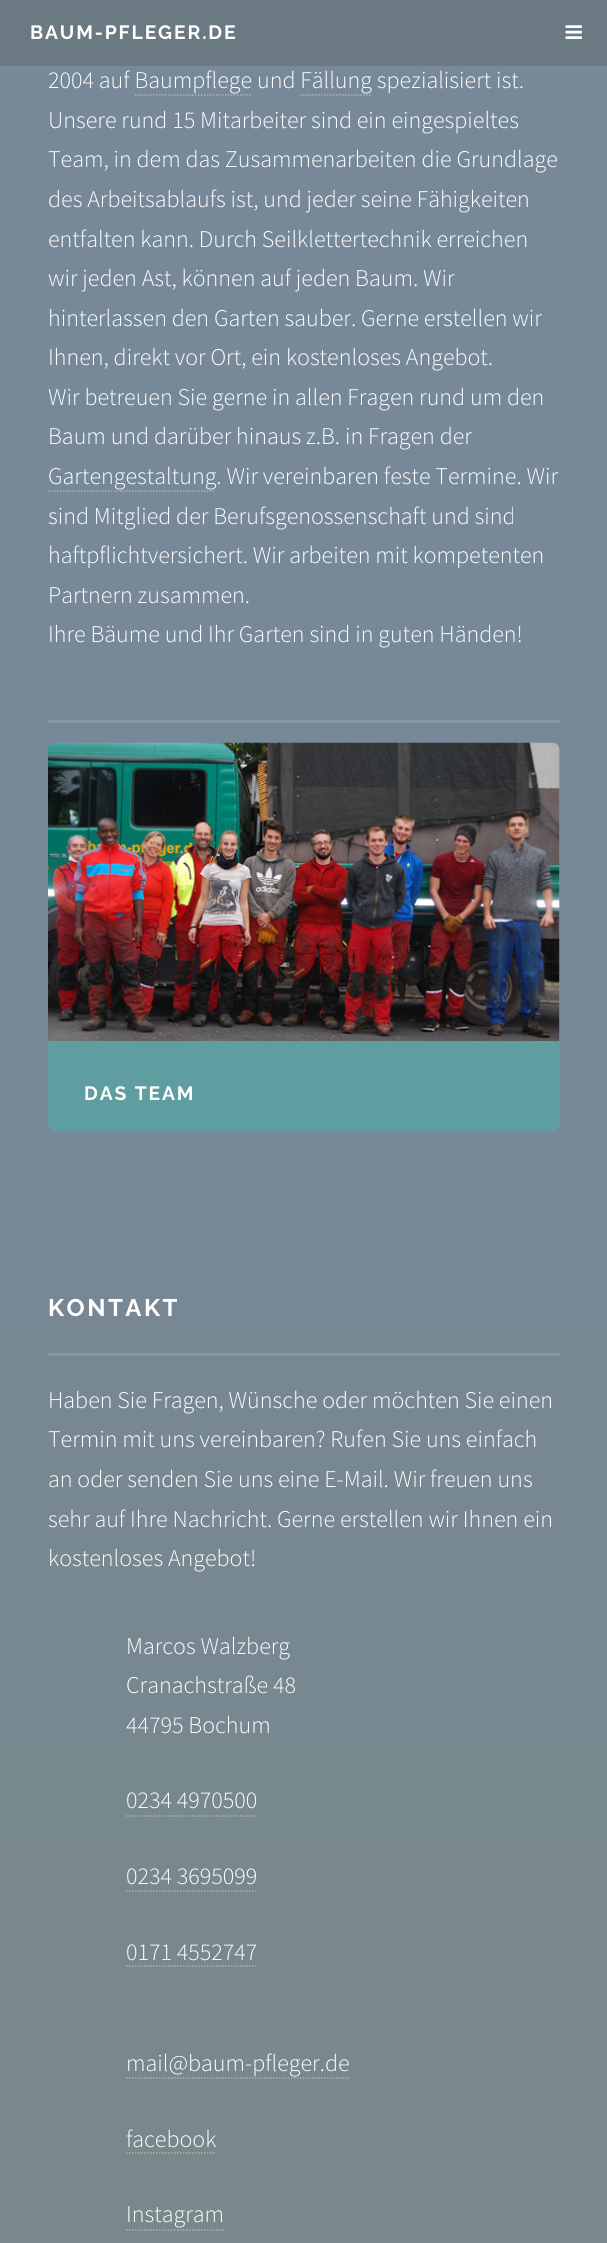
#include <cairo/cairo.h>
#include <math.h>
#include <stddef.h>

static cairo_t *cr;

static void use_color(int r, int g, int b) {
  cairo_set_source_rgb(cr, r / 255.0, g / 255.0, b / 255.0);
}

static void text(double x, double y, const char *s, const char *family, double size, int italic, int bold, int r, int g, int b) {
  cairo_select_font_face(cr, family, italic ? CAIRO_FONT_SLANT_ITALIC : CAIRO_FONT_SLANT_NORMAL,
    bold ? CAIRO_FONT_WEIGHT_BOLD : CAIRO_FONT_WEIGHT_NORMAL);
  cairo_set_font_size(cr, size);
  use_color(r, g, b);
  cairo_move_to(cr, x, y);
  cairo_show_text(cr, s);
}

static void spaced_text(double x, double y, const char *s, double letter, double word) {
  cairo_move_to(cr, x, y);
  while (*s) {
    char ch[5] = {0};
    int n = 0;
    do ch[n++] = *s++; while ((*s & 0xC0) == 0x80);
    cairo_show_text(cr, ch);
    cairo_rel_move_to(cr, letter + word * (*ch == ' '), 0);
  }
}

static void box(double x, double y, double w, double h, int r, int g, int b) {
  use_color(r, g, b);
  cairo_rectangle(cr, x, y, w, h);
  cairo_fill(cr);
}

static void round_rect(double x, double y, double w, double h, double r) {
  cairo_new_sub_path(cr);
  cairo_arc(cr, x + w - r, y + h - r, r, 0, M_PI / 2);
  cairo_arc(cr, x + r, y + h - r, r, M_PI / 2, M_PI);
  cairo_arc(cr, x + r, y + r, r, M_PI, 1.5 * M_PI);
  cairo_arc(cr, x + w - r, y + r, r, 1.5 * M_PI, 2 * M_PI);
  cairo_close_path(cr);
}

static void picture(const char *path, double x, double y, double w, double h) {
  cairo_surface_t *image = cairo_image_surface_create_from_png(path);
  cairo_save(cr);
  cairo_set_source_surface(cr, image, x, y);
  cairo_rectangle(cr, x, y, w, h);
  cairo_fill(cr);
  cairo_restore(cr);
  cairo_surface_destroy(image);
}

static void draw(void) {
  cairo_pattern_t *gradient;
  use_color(255, 255, 255);
  cairo_paint(cr);
  box(0, 0, 607, 66, 107, 121, 131);
  picture("img_01.png", 565, 25, 17, 14);
  box(0, 66, 607, 1115, 119, 136, 153);
  cairo_new_path(cr);
  cairo_move_to(cr, 135, 95);
  cairo_line_to(cr, 252, 95);
  use_color(167, 178, 189);
  cairo_set_line_width(cr, 1.5);
  cairo_set_dash(cr, (double[]){1.5, 1.5}, 2, 0);
  cairo_stroke(cr);
  cairo_new_path(cr);
  cairo_move_to(cr, 300, 95);
  cairo_line_to(cr, 372, 95);
  cairo_stroke(cr);
  cairo_new_path(cr);
  cairo_move_to(cr, 48, 491);
  cairo_line_to(cr, 216, 491);
  cairo_stroke(cr);
  box(48, 720, 512, 3, 136, 151, 166);
  use_color(95, 158, 160);
  round_rect(48, 743, 512, 388, 8);
  cairo_fill(cr);
  picture("img_02.png", 48, 742, 512, 299);
  gradient = cairo_pattern_create_linear(304, 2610, 304, 1181);
  cairo_pattern_add_color_stop_rgba(gradient, 0, 0.471, 0.533, 0.529, 1);
  cairo_pattern_add_color_stop_rgba(gradient, 1, 0.467, 0.533, 0.584, 1);
  cairo_set_source(cr, gradient);
  cairo_pattern_destroy(gradient);
  cairo_rectangle(cr, 0, 1183, 607, 1060);
  cairo_fill(cr);
  use_color(119, 136, 153);
  cairo_new_path(cr);
  cairo_move_to(cr, 0, 1181);
  cairo_line_to(cr, 607, 1241);
  cairo_line_to(cr, 607, 1181);
  cairo_close_path(cr);
  cairo_fill(cr);
  box(0, 1181, 20, 2, 119, 136, 153);
  box(48, 1353, 512, 3, 136, 151, 161);
  cairo_new_path(cr);
  cairo_move_to(cr, 126, 1816);
  cairo_line_to(cr, 258, 1816);
  use_color(167, 178, 182);
  cairo_stroke(cr);
  cairo_new_path(cr);
  cairo_move_to(cr, 126, 1891);
  cairo_line_to(cr, 258, 1891);
  cairo_stroke(cr);
  cairo_new_path(cr);
  cairo_move_to(cr, 126, 1966);
  cairo_line_to(cr, 258, 1966);
  use_color(167, 178, 181);
  cairo_stroke(cr);
  cairo_new_path(cr);
  cairo_move_to(cr, 126, 2078);
  cairo_line_to(cr, 349.5, 2078);
  use_color(167, 178, 180);
  cairo_stroke(cr);
  cairo_new_path(cr);
  cairo_move_to(cr, 126, 2153);
  cairo_line_to(cr, 216, 2153);
  cairo_stroke(cr);
  cairo_new_path(cr);
  cairo_move_to(cr, 126, 2230);
  cairo_line_to(cr, 223.5, 2230);
  cairo_stroke(cr);
  cairo_select_font_face(cr, "Raleway", CAIRO_FONT_SLANT_NORMAL, CAIRO_FONT_WEIGHT_BOLD);
  cairo_set_font_size(cr, 19.25);
  use_color(255, 255, 255);
  spaced_text(30, 39, "BAUM-PFLEGER.DE", 1.9, 0);
  text(48, 88, "2004 auf Baumpflege und Fällung spezialisiert ist.", "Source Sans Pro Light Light", 24, 0, 0, 255, 255, 255);
  text(48, 128, "Unsere rund 15 Mitarbeiter sind ein eingespieltes", "Source Sans Pro Light Light", 24, 0, 0, 255, 255, 255);
  text(48, 167, "Team, in dem das Zusammenarbeiten die Grundlage", "Source Sans Pro Light Light", 24, 0, 0, 255, 255, 255);
  text(48, 207, "des Arbeitsablaufs ist, und jeder seine Fähigkeiten", "Source Sans Pro Light Light", 24, 0, 0, 255, 255, 255);
  text(48, 247, "entfalten kann. Durch Seilklettertechnik erreichen", "Source Sans Pro Light Light", 24, 0, 0, 255, 255, 255);
  text(48, 286, "wir jeden Ast, können auf jeden Baum. Wir", "Source Sans Pro Light Light", 24, 0, 0, 255, 255, 255);
  text(48, 326, "hinterlassen den Garten sauber. Gerne erstellen wir", "Source Sans Pro Light Light", 24, 0, 0, 255, 255, 255);
  text(48, 365, "Ihnen, direkt vor Ort, ein kostenloses Angebot.", "Source Sans Pro Light Light", 24, 0, 0, 255, 255, 255);
  text(48, 405, "Wir betreuen Sie gerne in allen Fragen rund um den", "Source Sans Pro Light Light", 24, 0, 0, 255, 255, 255);
  text(48, 444, "Baum und darüber hinaus z.B. in Fragen der", "Source Sans Pro Light Light", 24, 0, 0, 255, 255, 255);
  text(48, 484, "Gartengestaltung. Wir vereinbaren feste Termine. Wir", "Source Sans Pro Light Light", 24, 0, 0, 255, 255, 255);
  text(48, 524, "sind Mitglied der Berufsgenossenschaft und sind", "Source Sans Pro Light Light", 24, 0, 0, 255, 255, 255);
  text(48, 563, "haftpflichtversichert. Wir arbeiten mit kompetenten", "Source Sans Pro Light Light", 24, 0, 0, 255, 255, 255);
  text(48, 603, "Partnern zusammen.", "Source Sans Pro Light Light", 24, 0, 0, 255, 255, 255);
  text(48, 642, "Ihre Bäume und Ihr Garten sind in guten Händen!", "Source Sans Pro Light Light", 24, 0, 0, 255, 255, 255);
  cairo_select_font_face(cr, "Raleway", CAIRO_FONT_SLANT_NORMAL, CAIRO_FONT_WEIGHT_BOLD);
  cairo_set_font_size(cr, 19.25);
  spaced_text(84, 1100, "DAS TEAM", 1.9, 0);
  cairo_set_font_size(cr, 24);
  spaced_text(48, 1316, "KONTAKT", 2.5, 0);
  text(48, 1408, "Haben Sie Fragen, Wünsche oder möchten Sie einen", "Source Sans Pro Light Light", 24, 0, 0, 255, 255, 255);
  text(48, 1447, "Termin mit uns vereinbaren? Rufen Sie uns einfach", "Source Sans Pro Light Light", 24, 0, 0, 255, 255, 255);
  text(48, 1487, "an oder senden Sie uns eine Е-Mail. Wir freuen uns", "Source Sans Pro Light Light", 24, 0, 0, 255, 255, 255);
  text(48, 1527, "sehr auf Ihre Nachricht. Gerne erstellen wir Ihnen ein", "Source Sans Pro Light Light", 24, 0, 0, 255, 255, 255);
  text(48, 1566, "kostenloses Angebot!", "Source Sans Pro Light Light", 24, 0, 0, 255, 255, 255);
  text(126, 1654, "Marcos Walzberg", "Source Sans Pro Light Light", 24, 0, 0, 255, 255, 255);
  text(126, 1693, "Cranachstraße 48", "Source Sans Pro Light Light", 24, 0, 0, 255, 255, 255);
  text(126, 1733, "44795 Bochum", "Source Sans Pro Light Light", 24, 0, 0, 255, 255, 255);
  text(126, 1808, "0234 4970500", "Source Sans Pro Light Light", 24, 0, 0, 255, 255, 255);
  text(126, 1884, "0234 3695099", "Source Sans Pro Light Light", 24, 0, 0, 255, 255, 255);
  text(126, 1960, "0171 4552747", "Source Sans Pro Light Light", 24, 0, 0, 255, 255, 255);
  text(126, 2071, "mail@baum-pfleger.de", "Source Sans Pro Light Light", 24, 0, 0, 255, 255, 255);
  text(126, 2147, "facebook", "Source Sans Pro Light Light", 24, 0, 0, 255, 255, 255);
  text(126, 2222, "Instagram", "Source Sans Pro Light Light", 24, 0, 0, 255, 255, 255);
}

int main(void) {
  cairo_surface_t *surface = cairo_image_surface_create(CAIRO_FORMAT_RGB24, 607, 2243);
  cr = cairo_create(surface);
  cairo_font_options_t *options = cairo_font_options_create();
  cairo_font_options_set_hint_metrics(options, CAIRO_HINT_METRICS_OFF);
  cairo_font_options_set_hint_style(options, CAIRO_HINT_STYLE_NONE);
  cairo_set_font_options(cr, options);
  cairo_set_miter_limit(cr, 4);
  draw();
  cairo_surface_write_to_png(surface, "out.png");
  cairo_font_options_destroy(options);
  cairo_destroy(cr);
  cairo_surface_destroy(surface);
  return 0;
}
